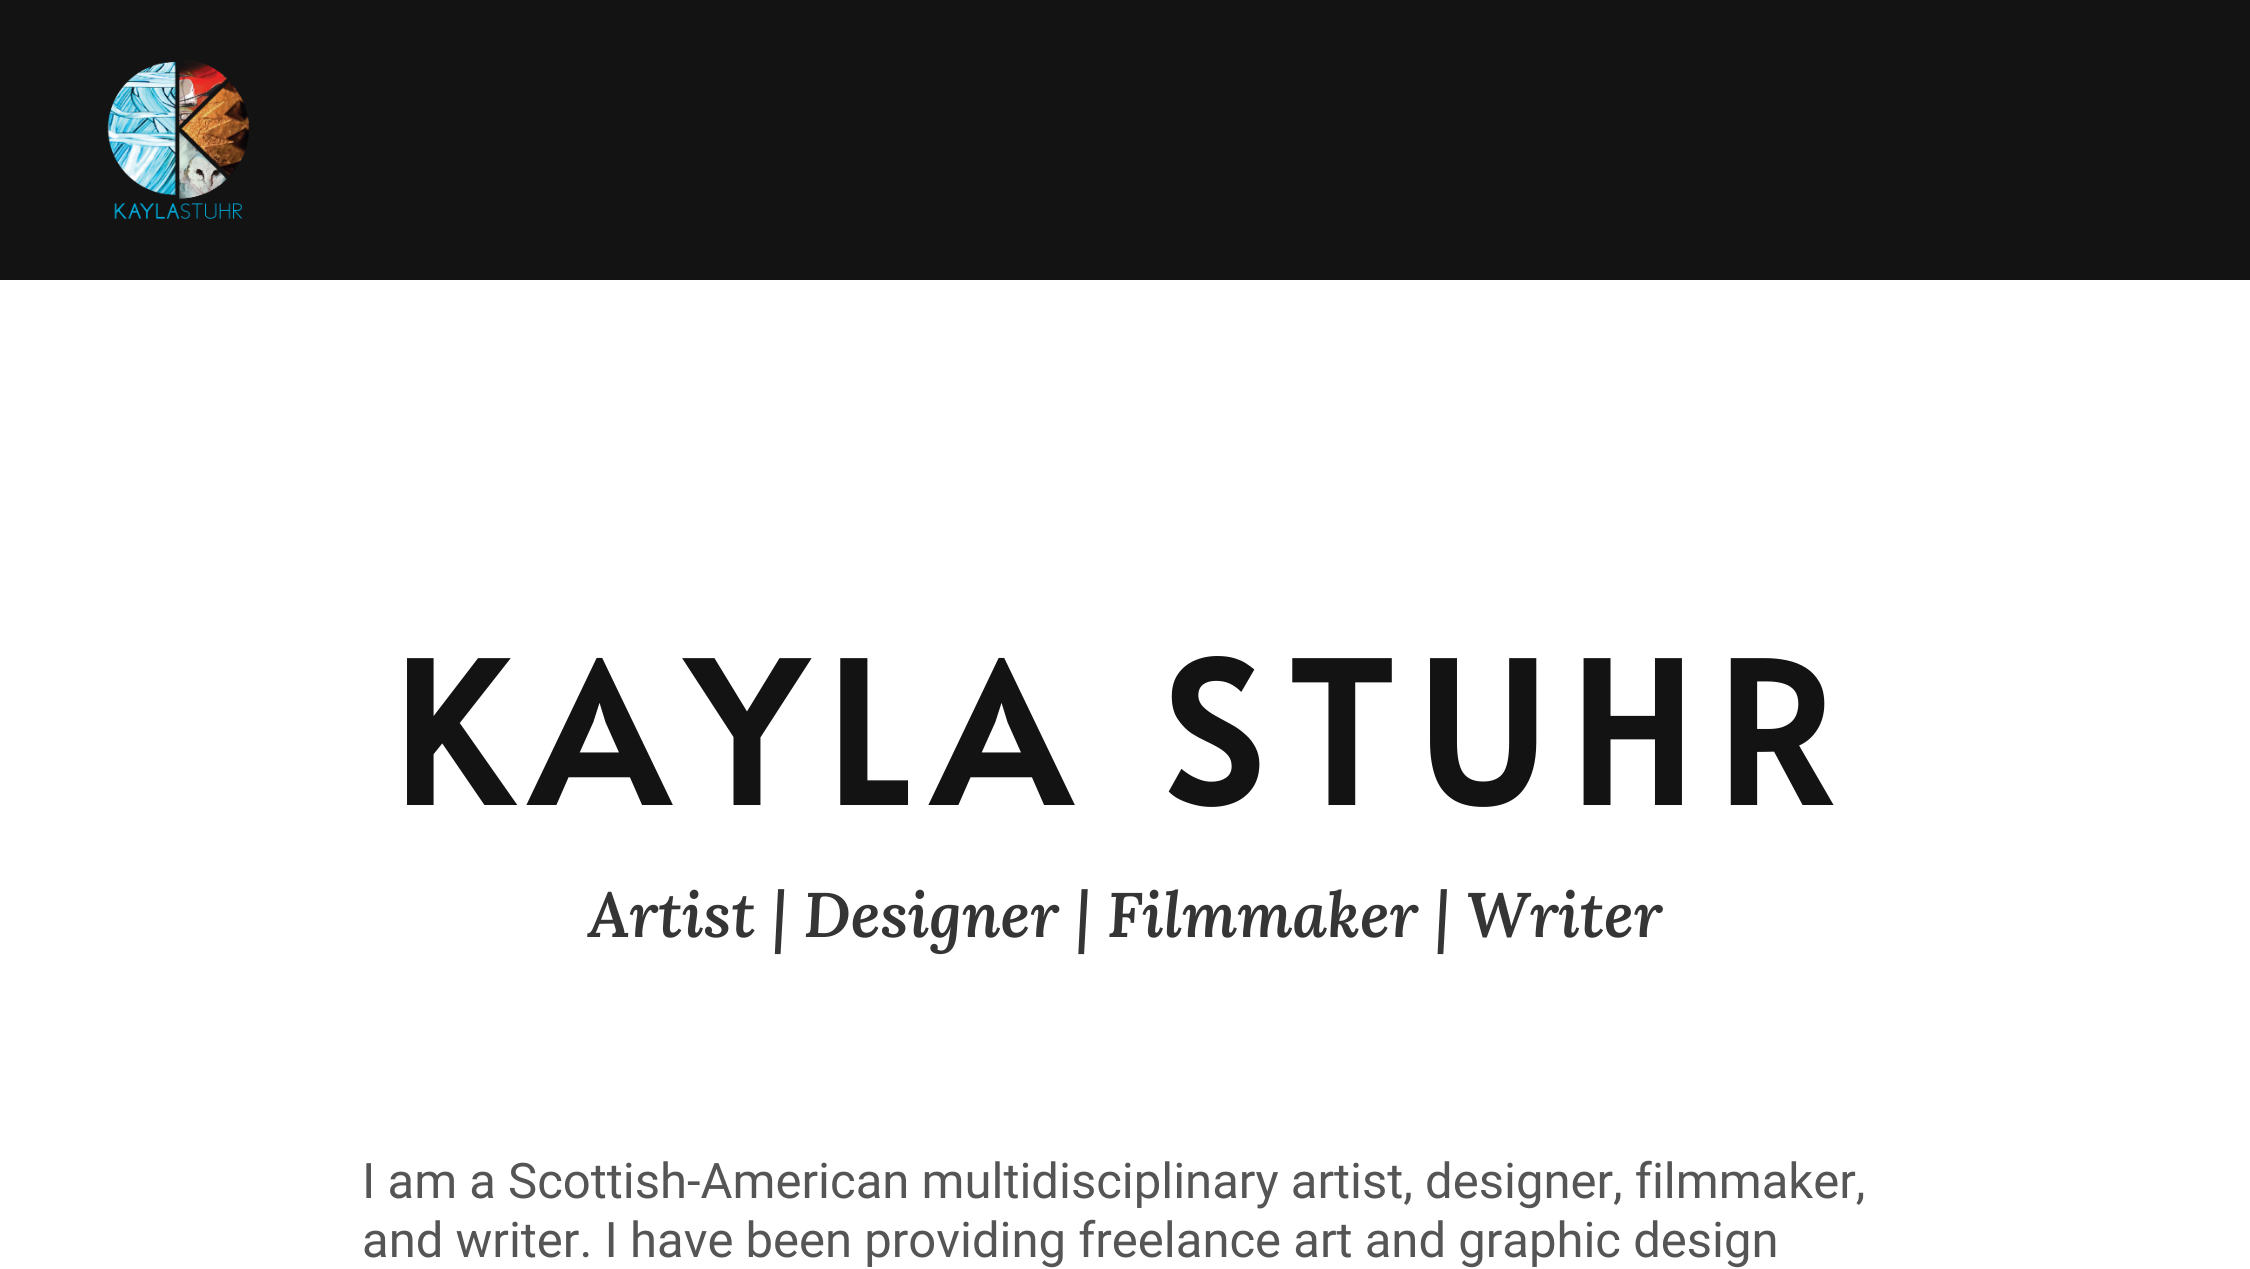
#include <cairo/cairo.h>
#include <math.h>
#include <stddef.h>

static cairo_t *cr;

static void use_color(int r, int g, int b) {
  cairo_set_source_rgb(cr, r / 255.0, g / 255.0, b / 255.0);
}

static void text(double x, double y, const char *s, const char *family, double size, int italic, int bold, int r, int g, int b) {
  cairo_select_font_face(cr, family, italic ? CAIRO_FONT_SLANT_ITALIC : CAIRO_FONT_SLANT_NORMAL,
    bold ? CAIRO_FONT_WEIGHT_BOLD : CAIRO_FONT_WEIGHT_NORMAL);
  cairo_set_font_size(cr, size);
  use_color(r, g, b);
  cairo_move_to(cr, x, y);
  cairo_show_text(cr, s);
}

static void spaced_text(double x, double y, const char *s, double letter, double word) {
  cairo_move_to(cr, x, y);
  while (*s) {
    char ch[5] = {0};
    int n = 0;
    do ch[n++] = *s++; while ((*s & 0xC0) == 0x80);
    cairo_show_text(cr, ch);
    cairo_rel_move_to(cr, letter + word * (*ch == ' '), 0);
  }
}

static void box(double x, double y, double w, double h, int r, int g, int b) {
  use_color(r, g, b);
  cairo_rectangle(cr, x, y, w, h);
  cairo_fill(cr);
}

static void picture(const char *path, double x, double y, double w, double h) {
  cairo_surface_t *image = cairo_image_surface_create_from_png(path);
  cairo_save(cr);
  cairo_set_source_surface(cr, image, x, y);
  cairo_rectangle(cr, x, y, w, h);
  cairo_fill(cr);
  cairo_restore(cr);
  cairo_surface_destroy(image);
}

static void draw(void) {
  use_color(255, 255, 255);
  cairo_paint(cr);
  box(0, 0, 2250, 280, 19, 19, 19);
  picture("img_01.png", 107, 59, 143, 160);
  cairo_select_font_face(cr, "Alata", CAIRO_FONT_SLANT_NORMAL, CAIRO_FONT_WEIGHT_BOLD);
  cairo_set_font_size(cr, 192.5);
  spaced_text(392, 805, "KAYLA STUHR", 24.5, 0);
  text(588, 937, "Artist | Designer | Filmmaker | Writer", "Lora SemiBold", 63, 1, 0, 53, 53, 53);
  text(362, 1198, "I am a Scottish-American multidisciplinary artist, designer, filmmaker,", "Roboto", 49, 0, 0, 85, 85, 85);
  text(362, 1257, "and writer. I have been providing freelance art and graphic design", "Roboto", 49, 0, 0, 85, 85, 85);
}

int main(void) {
  cairo_surface_t *surface = cairo_image_surface_create(CAIRO_FORMAT_RGB24, 2250, 1269);
  cr = cairo_create(surface);
  cairo_font_options_t *options = cairo_font_options_create();
  cairo_font_options_set_hint_metrics(options, CAIRO_HINT_METRICS_OFF);
  cairo_font_options_set_hint_style(options, CAIRO_HINT_STYLE_NONE);
  cairo_set_font_options(cr, options);
  cairo_set_miter_limit(cr, 4);
  draw();
  cairo_surface_write_to_png(surface, "out.png");
  cairo_font_options_destroy(options);
  cairo_destroy(cr);
  cairo_surface_destroy(surface);
  return 0;
}
